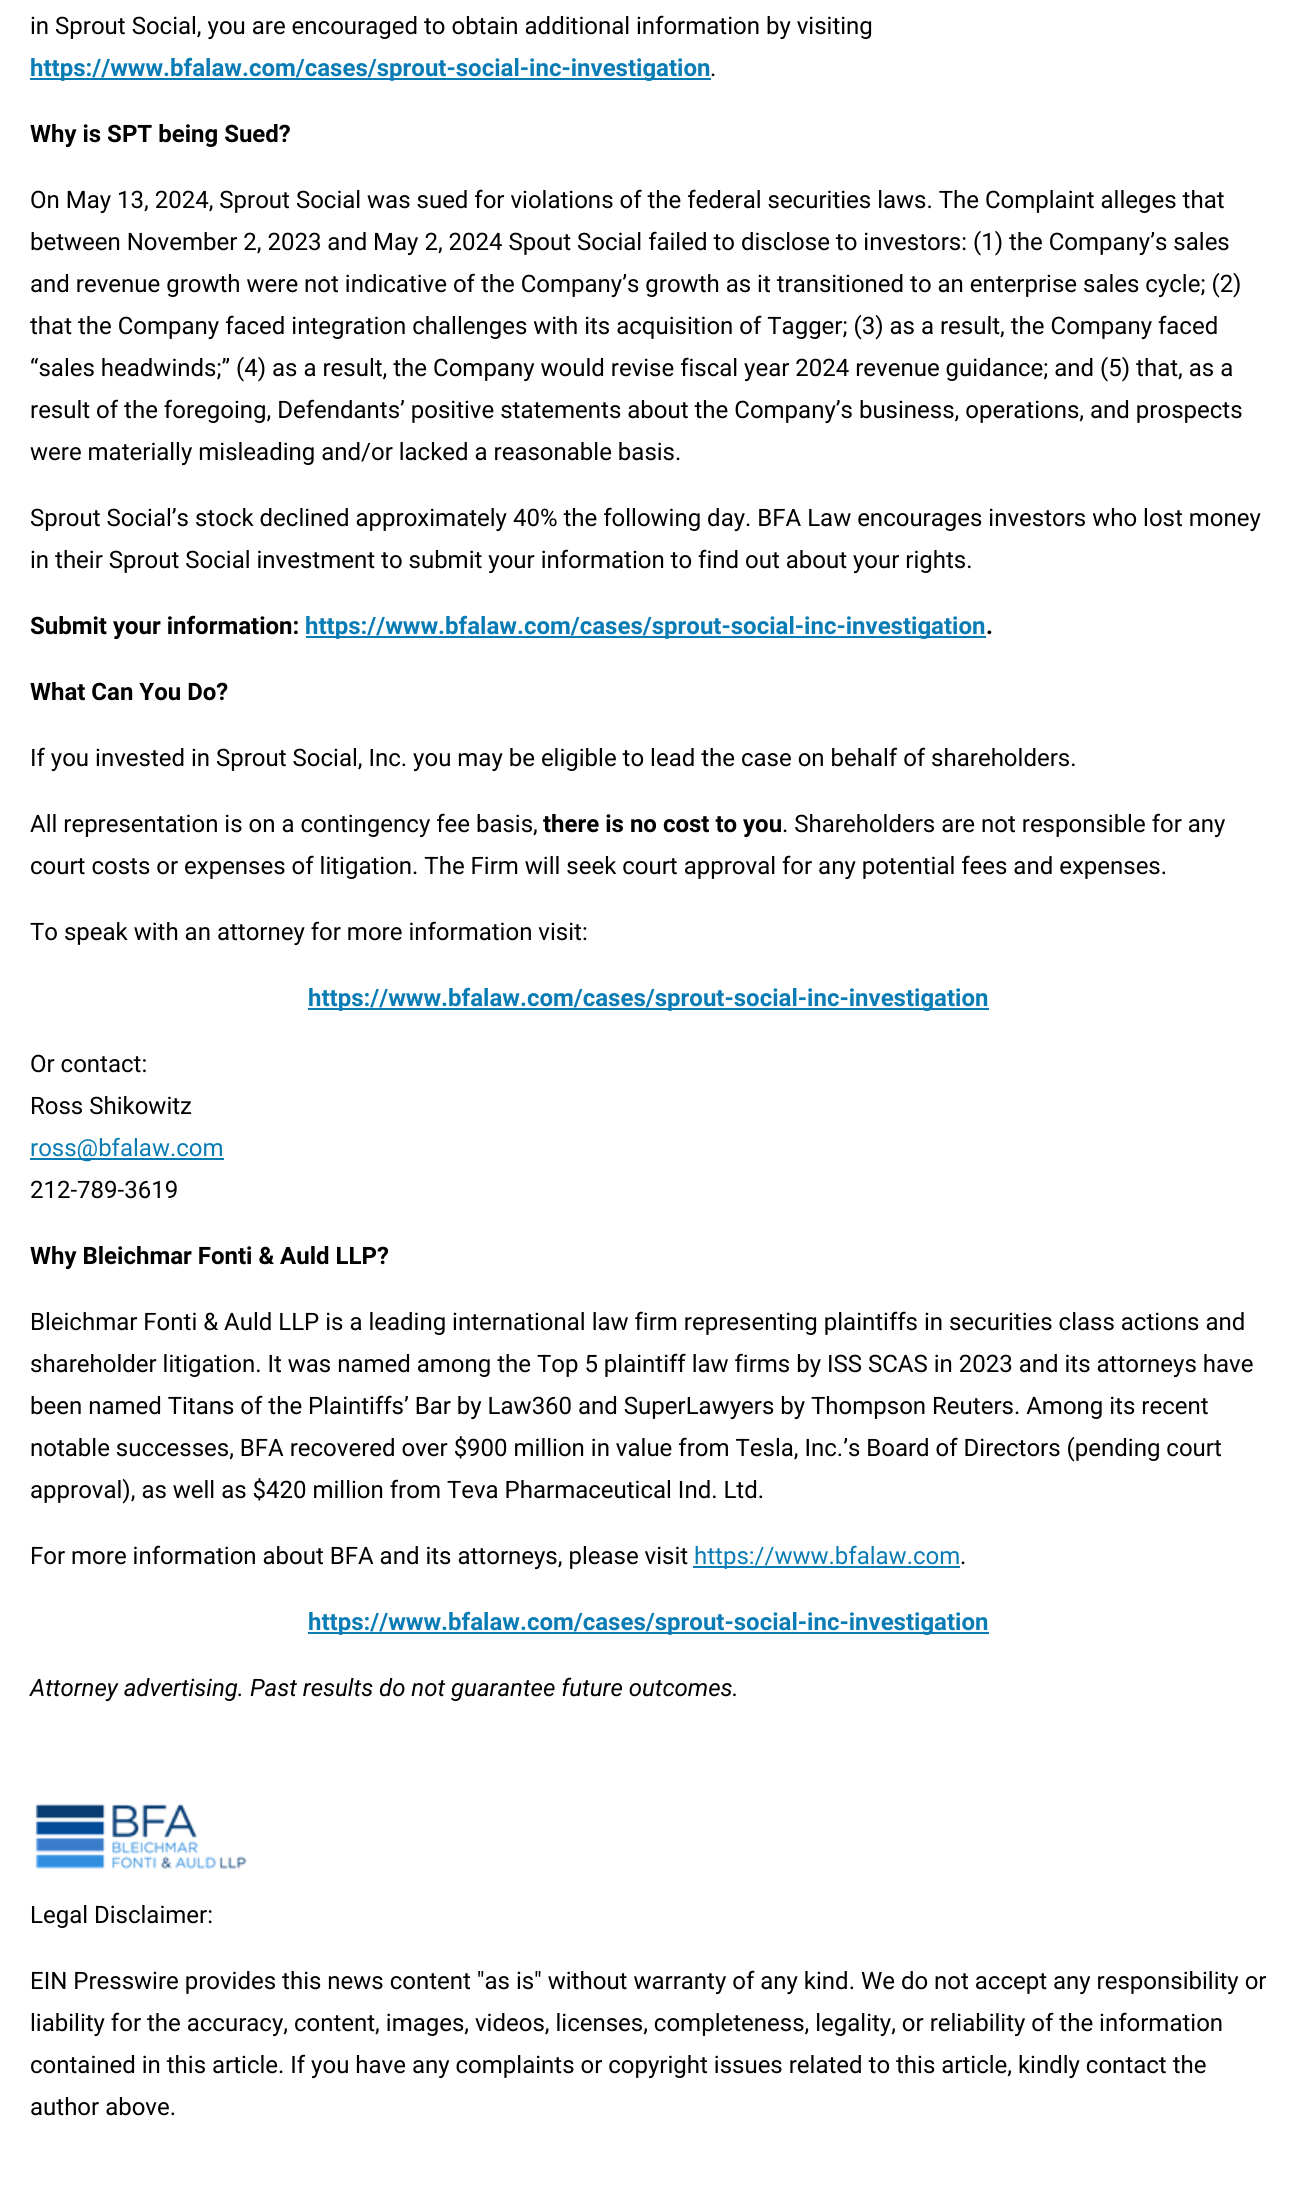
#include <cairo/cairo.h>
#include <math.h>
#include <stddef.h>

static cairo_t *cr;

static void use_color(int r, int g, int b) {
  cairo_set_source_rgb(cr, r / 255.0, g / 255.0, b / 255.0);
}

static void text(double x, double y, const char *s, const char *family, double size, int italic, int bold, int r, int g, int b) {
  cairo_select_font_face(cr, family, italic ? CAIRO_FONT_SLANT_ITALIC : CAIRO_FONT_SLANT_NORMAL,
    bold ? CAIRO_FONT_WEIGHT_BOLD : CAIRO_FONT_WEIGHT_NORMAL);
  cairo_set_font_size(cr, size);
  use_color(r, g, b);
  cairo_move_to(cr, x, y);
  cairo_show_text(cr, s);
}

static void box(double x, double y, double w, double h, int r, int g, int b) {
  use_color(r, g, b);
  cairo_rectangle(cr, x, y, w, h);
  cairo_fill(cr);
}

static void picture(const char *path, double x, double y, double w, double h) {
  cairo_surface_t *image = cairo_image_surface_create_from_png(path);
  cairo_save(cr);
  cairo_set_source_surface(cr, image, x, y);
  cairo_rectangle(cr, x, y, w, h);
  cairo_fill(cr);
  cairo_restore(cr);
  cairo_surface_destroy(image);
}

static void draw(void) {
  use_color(255, 255, 255);
  cairo_paint(cr);
  box(30, 78, 681, 2, 10, 124, 181);
  box(306, 636, 680, 2, 10, 124, 181);
  box(308, 1008, 681, 2, 10, 124, 181);
  box(30, 1158, 194, 2, 10, 124, 181);
  box(693, 1566, 267, 2, 10, 124, 181);
  box(308, 1632, 681, 2, 10, 124, 181);
  picture("img_01.png", 35, 1803, 212, 66);
  text(30, 34, "in Sprout Social, you are encouraged to obtain additional information by visiting", "Roboto", 24, 0, 0, 0, 0, 0);
  text(30, 76, "https://www.bfalaw.com/cases/sprout-social-inc-investigation", "Roboto", 24, 0, 1, 10, 124, 181);
  text(710, 76, ".", "Roboto", 24, 0, 0, 0, 0, 0);
  text(30, 142, "Why is SPT being Sued?", "Roboto", 24, 0, 1, 0, 0, 0);
  text(30, 208, "On May 13, 2024, Sprout Social was sued for violations of the federal securities laws. The Complaint alleges that", "Roboto", 24, 0, 0, 0, 0, 0);
  text(30, 250, "between November 2, 2023 and May 2, 2024 Spout Social failed to disclose to investors: (1) the Company’s sales", "Roboto", 24, 0, 0, 0, 0, 0);
  text(30, 292, "and revenue growth were not indicative of the Company’s growth as it transitioned to an enterprise sales cycle; (2)", "Roboto", 24, 0, 0, 0, 0, 0);
  text(30, 334, "that the Company faced integration challenges with its acquisition of Tagger; (3) as a result, the Company faced", "Roboto", 24, 0, 0, 0, 0, 0);
  text(30, 376, "“sales headwinds;” (4) as a result, the Company would revise fiscal year 2024 revenue guidance; and (5) that, as a", "Roboto", 24, 0, 0, 0, 0, 0);
  text(30, 418, "result of the foregoing, Defendants’ positive statements about the Company’s business, operations, and prospects", "Roboto", 24, 0, 0, 0, 0, 0);
  text(30, 460, "were materially misleading and/or lacked a reasonable basis.", "Roboto", 24, 0, 0, 0, 0, 0);
  text(30, 526, "Sprout Social’s stock declined approximately 40% the following day. BFA Law encourages investors who lost money", "Roboto", 24, 0, 0, 0, 0, 0);
  text(30, 568, "in their Sprout Social investment to submit your information to find out about your rights.", "Roboto", 24, 0, 0, 0, 0, 0);
  text(30, 634, "Submit your information:", "Roboto", 24, 0, 1, 0, 0, 0);
  text(305, 634, "https://www.bfalaw.com/cases/sprout-social-inc-investigation", "Roboto", 24, 0, 1, 10, 124, 181);
  text(986, 634, ".", "Roboto", 24, 0, 1, 0, 0, 0);
  text(30, 700, "What Can You Do?", "Roboto", 24, 0, 1, 0, 0, 0);
  text(30, 766, "If you invested in Sprout Social, Inc. you may be eligible to lead the case on behalf of shareholders.", "Roboto", 24, 0, 0, 0, 0, 0);
  text(30, 832, "All representation is on a contingency fee basis,", "Roboto", 24, 0, 0, 0, 0, 0);
  text(543, 832, "there is no cost to you", "Roboto", 24, 0, 1, 0, 0, 0);
  text(782, 832, ". Shareholders are not responsible for any", "Roboto", 24, 0, 0, 0, 0, 0);
  text(30, 874, "court costs or expenses of litigation. The Firm will seek court approval for any potential fees and expenses.", "Roboto", 24, 0, 0, 0, 0, 0);
  text(30, 940, "To speak with an attorney for more information visit:", "Roboto", 24, 0, 0, 0, 0, 0);
  text(308, 1006, "https://www.bfalaw.com/cases/sprout-social-inc-investigation", "Roboto", 24, 0, 1, 10, 124, 181);
  text(30, 1072, "Or contact:", "Roboto", 24, 0, 0, 0, 0, 0);
  text(30, 1114, "Ross Shikowitz", "Roboto", 24, 0, 0, 0, 0, 0);
  text(30, 1156, "ross@bfalaw.com", "Roboto", 24, 0, 0, 10, 124, 181);
  text(30, 1198, "212-789-3619", "Roboto", 24, 0, 0, 0, 0, 0);
  text(30, 1264, "Why Bleichmar Fonti & Auld LLP?", "Roboto", 24, 0, 1, 0, 0, 0);
  text(30, 1330, "Bleichmar Fonti & Auld LLP is a leading international law firm representing plaintiffs in securities class actions and", "Roboto", 24, 0, 0, 0, 0, 0);
  text(30, 1372, "shareholder litigation. It was named among the Top 5 plaintiff law firms by ISS SCAS in 2023 and its attorneys have", "Roboto", 24, 0, 0, 0, 0, 0);
  text(30, 1414, "been named Titans of the Plaintiffs’ Bar by Law360 and SuperLawyers by Thompson Reuters. Among its recent", "Roboto", 24, 0, 0, 0, 0, 0);
  text(30, 1456, "notable successes, BFA recovered over $900 million in value from Tesla, Inc.’s Board of Directors (pending court", "Roboto", 24, 0, 0, 0, 0, 0);
  text(30, 1498, "approval), as well as $420 million from Teva Pharmaceutical Ind. Ltd.", "Roboto", 24, 0, 0, 0, 0, 0);
  text(30, 1564, "For more information about BFA and its attorneys, please visit", "Roboto", 24, 0, 0, 0, 0, 0);
  text(694, 1564, "https://www.bfalaw.com", "Roboto", 24, 0, 0, 10, 124, 181);
  text(960, 1564, ".", "Roboto", 24, 0, 0, 0, 0, 0);
  text(308, 1630, "https://www.bfalaw.com/cases/sprout-social-inc-investigation", "Roboto", 24, 0, 1, 10, 124, 181);
  text(30, 1696, "Attorney advertising. Past results do not guarantee future outcomes.", "Roboto", 24, 1, 0, 0, 0, 0);
  text(30, 1923, "Legal Disclaimer:", "Roboto", 24, 0, 0, 0, 0, 0);
  text(30, 1989, "EIN Presswire provides this news content \"as is\" without warranty of any kind. We do not accept any responsibility or", "Roboto", 24, 0, 0, 0, 0, 0);
  text(30, 2031, "liability for the accuracy, content, images, videos, licenses, completeness, legality, or reliability of the information", "Roboto", 24, 0, 0, 0, 0, 0);
  text(30, 2073, "contained in this article. If you have any complaints or copyright issues related to this article, kindly contact the", "Roboto", 24, 0, 0, 0, 0, 0);
  text(30, 2115, "author above.", "Roboto", 24, 0, 0, 0, 0, 0);
}

int main(void) {
  cairo_surface_t *surface = cairo_image_surface_create(CAIRO_FORMAT_RGB24, 1295, 2200);
  cr = cairo_create(surface);
  cairo_font_options_t *options = cairo_font_options_create();
  cairo_font_options_set_hint_metrics(options, CAIRO_HINT_METRICS_OFF);
  cairo_font_options_set_hint_style(options, CAIRO_HINT_STYLE_NONE);
  cairo_set_font_options(cr, options);
  cairo_set_miter_limit(cr, 4);
  draw();
  cairo_surface_write_to_png(surface, "out.png");
  cairo_font_options_destroy(options);
  cairo_destroy(cr);
  cairo_surface_destroy(surface);
  return 0;
}
